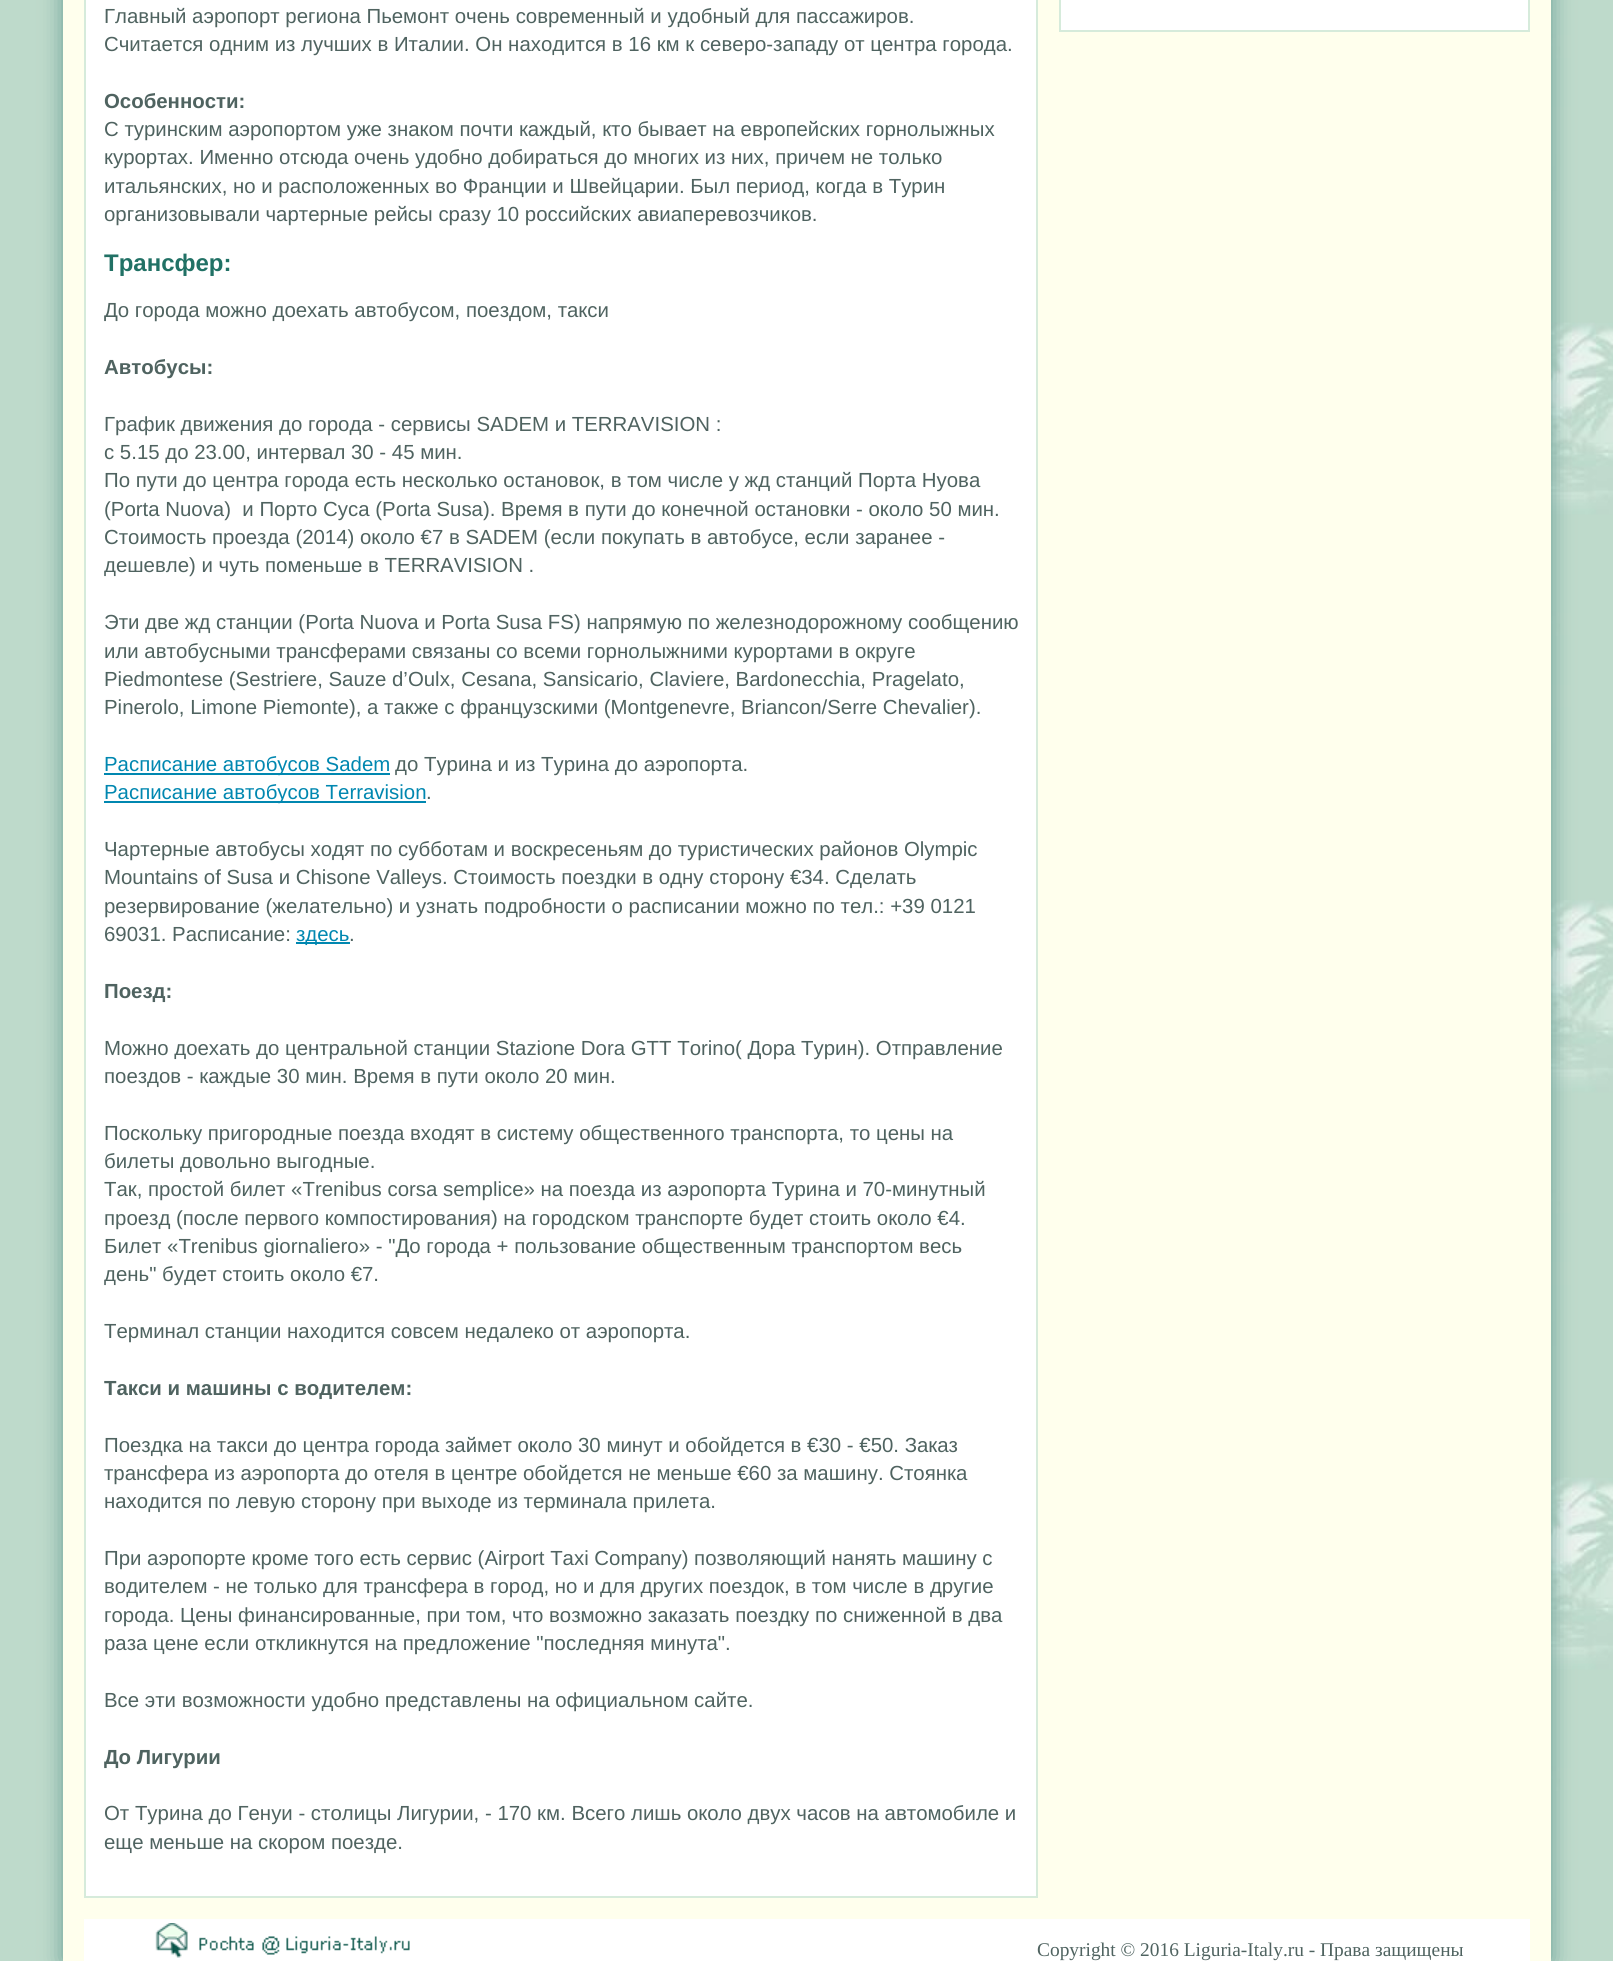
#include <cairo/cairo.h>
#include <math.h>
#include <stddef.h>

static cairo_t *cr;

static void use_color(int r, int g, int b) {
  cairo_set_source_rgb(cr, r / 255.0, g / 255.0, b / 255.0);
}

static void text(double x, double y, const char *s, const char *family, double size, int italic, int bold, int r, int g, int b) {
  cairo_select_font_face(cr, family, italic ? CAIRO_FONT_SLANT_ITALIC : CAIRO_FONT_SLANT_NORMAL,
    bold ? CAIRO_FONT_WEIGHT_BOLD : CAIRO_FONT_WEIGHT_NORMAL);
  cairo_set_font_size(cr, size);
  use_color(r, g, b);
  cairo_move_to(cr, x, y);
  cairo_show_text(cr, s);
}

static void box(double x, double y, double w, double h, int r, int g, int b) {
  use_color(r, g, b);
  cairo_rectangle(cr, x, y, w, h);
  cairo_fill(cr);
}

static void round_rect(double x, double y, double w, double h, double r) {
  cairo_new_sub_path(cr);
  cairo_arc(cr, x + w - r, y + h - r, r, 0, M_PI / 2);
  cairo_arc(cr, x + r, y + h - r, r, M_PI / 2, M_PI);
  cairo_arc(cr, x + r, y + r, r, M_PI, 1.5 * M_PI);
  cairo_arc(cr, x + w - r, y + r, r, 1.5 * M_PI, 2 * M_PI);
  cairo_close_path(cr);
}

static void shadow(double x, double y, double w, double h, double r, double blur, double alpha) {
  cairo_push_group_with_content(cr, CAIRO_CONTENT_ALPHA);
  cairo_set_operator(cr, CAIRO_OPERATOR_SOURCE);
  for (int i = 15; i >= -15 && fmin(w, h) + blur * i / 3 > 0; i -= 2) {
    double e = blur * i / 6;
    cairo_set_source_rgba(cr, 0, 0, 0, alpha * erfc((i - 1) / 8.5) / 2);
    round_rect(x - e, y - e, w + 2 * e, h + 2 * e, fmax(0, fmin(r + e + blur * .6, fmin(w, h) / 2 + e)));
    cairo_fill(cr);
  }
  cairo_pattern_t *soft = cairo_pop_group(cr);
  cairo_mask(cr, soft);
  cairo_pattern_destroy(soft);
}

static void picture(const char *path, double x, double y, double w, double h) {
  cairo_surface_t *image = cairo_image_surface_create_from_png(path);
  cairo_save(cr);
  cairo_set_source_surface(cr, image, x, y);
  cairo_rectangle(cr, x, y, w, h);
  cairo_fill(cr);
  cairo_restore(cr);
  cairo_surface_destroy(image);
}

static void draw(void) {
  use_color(255, 255, 255);
  cairo_paint(cr);
  picture("img_01.png", 0, 0, 1613, 1961);
  use_color(102, 157, 148);
  shadow(63, -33, 1488, 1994, 0, 11, 1);
  box(63, 0, 1488, 1961, 255, 255, 237);
  use_color(255, 255, 255);
  cairo_rectangle(cr, 85, -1, 952, 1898);
  cairo_fill_preserve(cr);
  use_color(214, 235, 219);
  cairo_stroke(cr);
  box(104, 773, 286, 2, 0, 135, 176);
  box(104, 801, 322, 2, 0, 135, 176);
  box(296, 942, 54, 2, 0, 135, 176);
  use_color(255, 255, 255);
  cairo_rectangle(cr, 1060, -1, 469, 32);
  cairo_fill_preserve(cr);
  use_color(214, 235, 219);
  cairo_stroke(cr);
  box(84, 1919, 1446, 42, 255, 255, 255);
  picture("img_02.png", 155, 1923, 255, 35);
  text(104, 23, "Главный аэропорт региона Пьемонт очень современный и удобный для пассажиров.", "Liberation Sans", 20.4, 0, 0, 79, 99, 96);
  text(104, 51, "Считается одним из лучших в Италии. Он находится в 16 км к северо-западу от центра города.", "Liberation Sans", 20.4, 0, 0, 79, 99, 96);
  text(104, 108, "Особенности:", "Liberation Sans", 20.4, 0, 1, 79, 99, 96);
  text(104, 136, "С туринским аэропортом уже знаком почти каждый, кто бывает на европейских горнолыжных", "Liberation Sans", 20.4, 0, 0, 79, 99, 96);
  text(104, 164, "курортах. Именно отсюда очень удобно добираться до многих из них, причем не только", "Liberation Sans", 20.4, 0, 0, 79, 99, 96);
  text(104, 193, "итальянских, но и расположенных во Франции и Швейцарии. Был период, когда в Турин", "Liberation Sans", 20.4, 0, 0, 79, 99, 96);
  text(104, 221, "организовывали чартерные рейсы сразу 10 российских авиаперевозчиков.", "Liberation Sans", 20.4, 0, 0, 79, 99, 96);
  text(104, 271, "Трансфер:", "Liberation Sans", 24, 0, 1, 33, 113, 101);
  text(104, 317, "До города можно доехать автобусом, поездом, такси", "Liberation Sans", 20.4, 0, 0, 79, 99, 96);
  text(104, 374, "Автобусы:", "Liberation Sans", 20.4, 0, 1, 79, 99, 96);
  text(104, 431, "График движения до города - сервисы SADEM и TERRAVISION :", "Liberation Sans", 20.4, 0, 0, 79, 99, 96);
  text(104, 459, "с 5.15 до 23.00, интервал 30 - 45 мин.", "Liberation Sans", 20.4, 0, 0, 79, 99, 96);
  text(104, 487, "По пути до центра города есть несколько остановок, в том числе у жд станций Порта Нуова", "Liberation Sans", 20.4, 0, 0, 79, 99, 96);
  text(104, 516, "(Porta Nuova)  и Порто Суса (Porta Susa). Время в пути до конечной остановки - около 50 мин.", "Liberation Sans", 20.4, 0, 0, 79, 99, 96);
  text(104, 544, "Стоимость проезда (2014) около €7 в SADEM (если покупать в автобусе, если заранее -", "Liberation Sans", 20.4, 0, 0, 79, 99, 96);
  text(104, 572, "дешевле) и чуть поменьше в TERRAVISION .", "Liberation Sans", 20.4, 0, 0, 79, 99, 96);
  text(104, 629, "Эти две жд станции (Porta Nuova и Porta Susa FS) напрямую по железнодорожному сообщению", "Liberation Sans", 20.4, 0, 0, 79, 99, 96);
  text(104, 658, "или автобусными трансферами связаны со всеми горнолыжними курортами в округе", "Liberation Sans", 20.4, 0, 0, 79, 99, 96);
  text(104, 686, "Piedmontese (Sestriere, Sauze d’Oulx, Cesana, Sansicario, Claviere, Bardonecchia, Pragelato,", "Liberation Sans", 20.4, 0, 0, 79, 99, 96);
  text(104, 714, "Pinerolo, Limone Piemonte), а также с французскими (Montgenevre, Briancon/Serre Chevalier).", "Liberation Sans", 20.4, 0, 0, 79, 99, 96);
  text(104, 771, "Расписание автобусов Sadem", "Liberation Sans", 20.4, 0, 0, 0, 135, 176);
  text(395, 771, "до Турина и из Турина до аэропорта.", "Liberation Sans", 20.4, 0, 0, 79, 99, 96);
  text(104, 799, "Расписание автобусов Terravision", "Liberation Sans", 20.4, 0, 0, 0, 135, 176);
  text(426, 799, ".", "Liberation Sans", 20.4, 0, 0, 79, 99, 96);
  text(104, 856, "Чартерные автобусы ходят по субботам и воскресеньям до туристических районов Olympic", "Liberation Sans", 20.4, 0, 0, 79, 99, 96);
  text(104, 884, "Mountains of Susa и Chisone Valleys. Стоимость поездки в одну сторону €34. Сделать", "Liberation Sans", 20.4, 0, 0, 79, 99, 96);
  text(104, 913, "резервирование (желательно) и узнать подробности о расписании можно по тел.: +39 0121", "Liberation Sans", 20.4, 0, 0, 79, 99, 96);
  text(104, 941, "69031. Расписание:", "Liberation Sans", 20.4, 0, 0, 79, 99, 96);
  text(296, 941, "здесь", "Liberation Sans", 20.4, 0, 0, 0, 135, 176);
  text(349, 941, ".", "Liberation Sans", 20.4, 0, 0, 79, 99, 96);
  text(104, 998, "Поезд:", "Liberation Sans", 20.4, 0, 1, 79, 99, 96);
  text(104, 1055, "Можно доехать до центральной станции Stazione Dora GTT Torino( Дора Турин). Отправление", "Liberation Sans", 20.4, 0, 0, 79, 99, 96);
  text(104, 1083, "поездов - каждые 30 мин. Время в пути около 20 мин.", "Liberation Sans", 20.4, 0, 0, 79, 99, 96);
  text(104, 1140, "Поскольку пригородные поезда входят в систему общественного транспорта, то цены на", "Liberation Sans", 20.4, 0, 0, 79, 99, 96);
  text(104, 1168, "билеты довольно выгодные.", "Liberation Sans", 20.4, 0, 0, 79, 99, 96);
  text(104, 1196, "Так, простой билет «Trenibus corsa semplice» на поезда из аэропорта Турина и 70-минутный", "Liberation Sans", 20.4, 0, 0, 79, 99, 96);
  text(104, 1225, "проезд (после первого компостирования) на городском транспорте будет стоить около €4.", "Liberation Sans", 20.4, 0, 0, 79, 99, 96);
  text(104, 1253, "Билет «Trenibus giornaliero» - \"До города + пользование общественным транспортом весь", "Liberation Sans", 20.4, 0, 0, 79, 99, 96);
  text(104, 1281, "день\" будет стоить около €7.", "Liberation Sans", 20.4, 0, 0, 79, 99, 96);
  text(104, 1338, "Терминал станции находится совсем недалеко от аэропорта.", "Liberation Sans", 20.4, 0, 0, 79, 99, 96);
  text(104, 1395, "Такси и машины с водителем:", "Liberation Sans", 20.4, 0, 1, 79, 99, 96);
  text(104, 1452, "Поездка на такси до центра города займет около 30 минут и обойдется в €30 - €50. Заказ", "Liberation Sans", 20.4, 0, 0, 79, 99, 96);
  text(104, 1480, "трансфера из аэропорта до отеля в центре обойдется не меньше €60 за машину. Стоянка", "Liberation Sans", 20.4, 0, 0, 79, 99, 96);
  text(104, 1508, "находится по левую сторону при выходе из терминала прилета.", "Liberation Sans", 20.4, 0, 0, 79, 99, 96);
  text(104, 1565, "При аэропорте кроме того есть сервис (Airport Taxi Company) позволяющий нанять машину с", "Liberation Sans", 20.4, 0, 0, 79, 99, 96);
  text(104, 1593, "водителем - не только для трансфера в город, но и для других поездок, в том числе в другие", "Liberation Sans", 20.4, 0, 0, 79, 99, 96);
  text(104, 1622, "города. Цены финансированные, при том, что возможно заказать поездку по сниженной в два", "Liberation Sans", 20.4, 0, 0, 79, 99, 96);
  text(104, 1650, "раза цене если откликнутся на предложение \"последняя минута\".", "Liberation Sans", 20.4, 0, 0, 79, 99, 96);
  text(104, 1707, "Все эти возможности удобно представлены на официальном сайте.", "Liberation Sans", 20.4, 0, 0, 79, 99, 96);
  text(104, 1764, "До Лигурии", "Liberation Sans", 20.4, 0, 1, 79, 99, 96);
  text(104, 1820, "От Турина до Генуи - столицы Лигурии, - 170 км. Всего лишь около двух часов на автомобиле и", "Liberation Sans", 20.4, 0, 0, 79, 99, 96);
  text(104, 1849, "еще меньше на скором поезде.", "Liberation Sans", 20.4, 0, 0, 79, 99, 96);
  text(1037, 1956, "Copyright © 2016 Liguria-Italy.ru - Права защищены", "Liberation Serif", 19.4, 0, 0, 79, 99, 96);
}

int main(void) {
  cairo_surface_t *surface = cairo_image_surface_create(CAIRO_FORMAT_RGB24, 1613, 1961);
  cr = cairo_create(surface);
  cairo_font_options_t *options = cairo_font_options_create();
  cairo_font_options_set_hint_metrics(options, CAIRO_HINT_METRICS_OFF);
  cairo_font_options_set_hint_style(options, CAIRO_HINT_STYLE_NONE);
  cairo_set_font_options(cr, options);
  cairo_set_miter_limit(cr, 4);
  draw();
  cairo_surface_write_to_png(surface, "out.png");
  cairo_font_options_destroy(options);
  cairo_destroy(cr);
  cairo_surface_destroy(surface);
  return 0;
}
